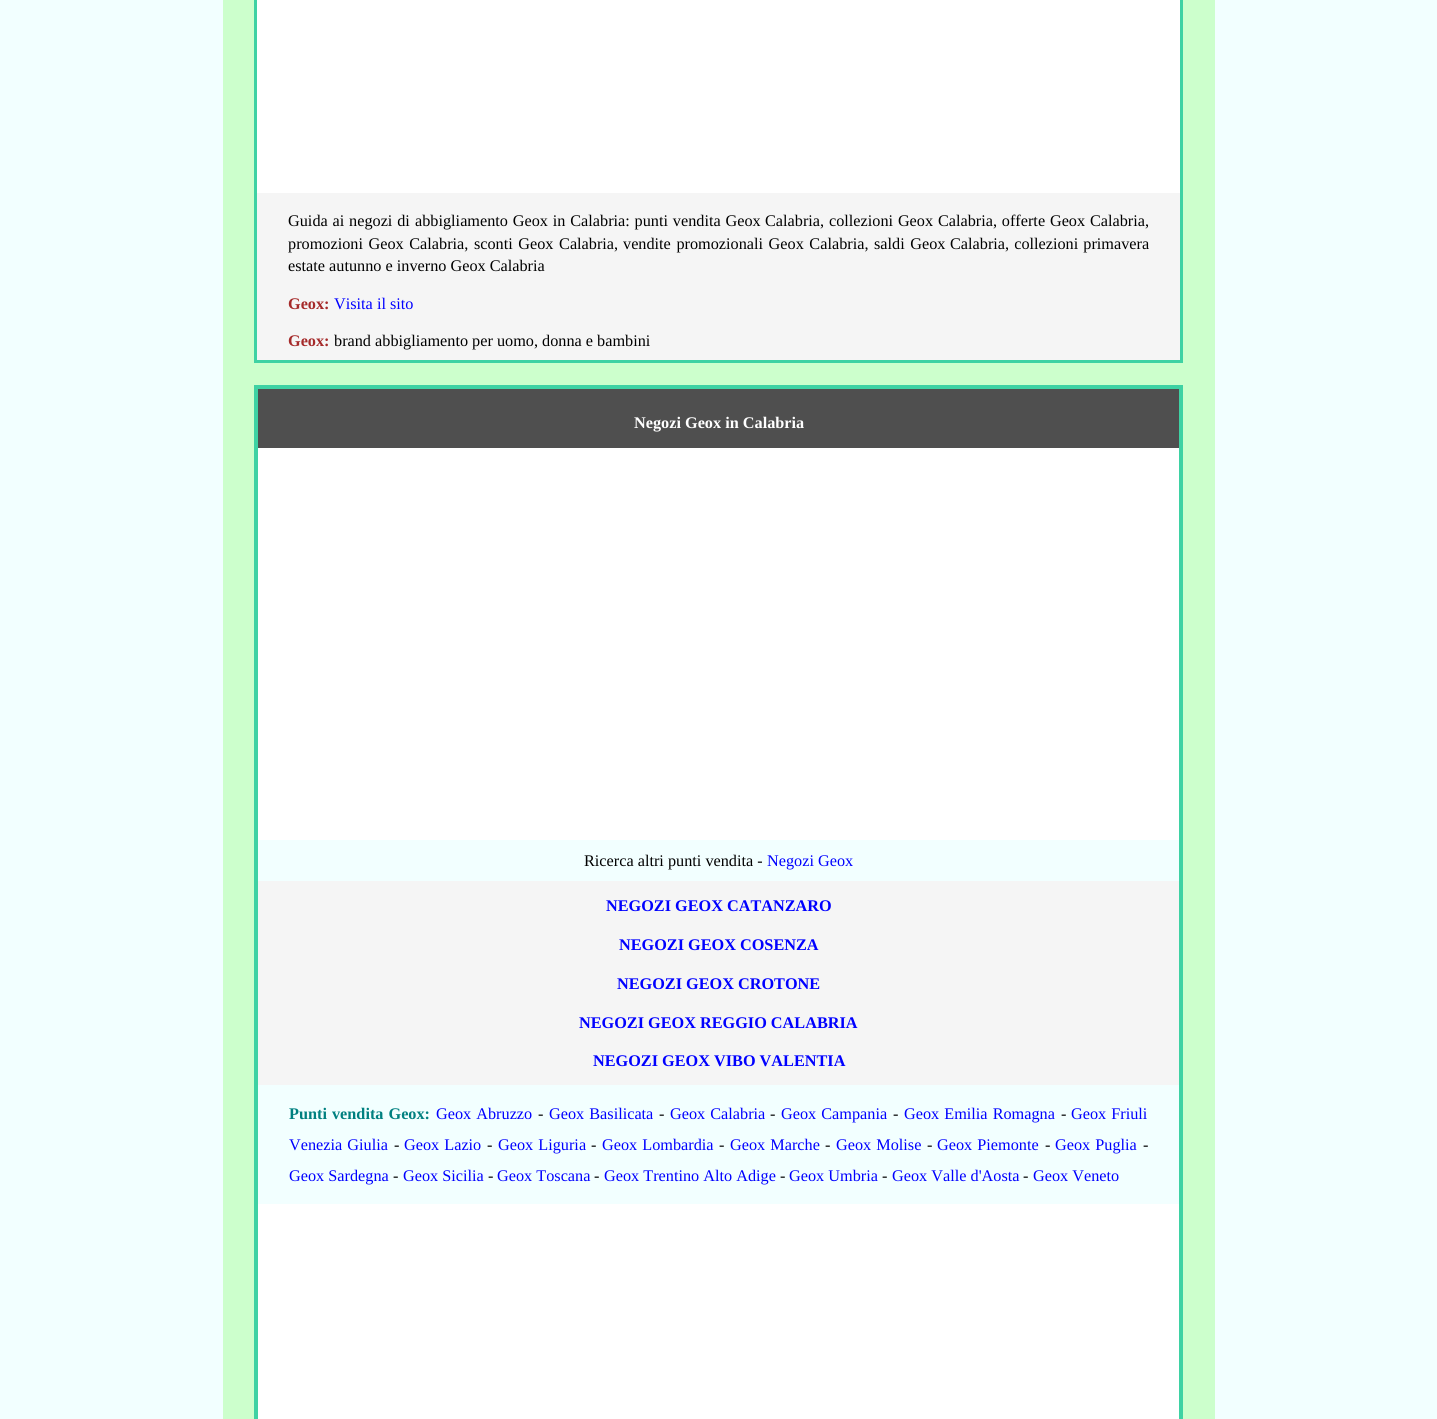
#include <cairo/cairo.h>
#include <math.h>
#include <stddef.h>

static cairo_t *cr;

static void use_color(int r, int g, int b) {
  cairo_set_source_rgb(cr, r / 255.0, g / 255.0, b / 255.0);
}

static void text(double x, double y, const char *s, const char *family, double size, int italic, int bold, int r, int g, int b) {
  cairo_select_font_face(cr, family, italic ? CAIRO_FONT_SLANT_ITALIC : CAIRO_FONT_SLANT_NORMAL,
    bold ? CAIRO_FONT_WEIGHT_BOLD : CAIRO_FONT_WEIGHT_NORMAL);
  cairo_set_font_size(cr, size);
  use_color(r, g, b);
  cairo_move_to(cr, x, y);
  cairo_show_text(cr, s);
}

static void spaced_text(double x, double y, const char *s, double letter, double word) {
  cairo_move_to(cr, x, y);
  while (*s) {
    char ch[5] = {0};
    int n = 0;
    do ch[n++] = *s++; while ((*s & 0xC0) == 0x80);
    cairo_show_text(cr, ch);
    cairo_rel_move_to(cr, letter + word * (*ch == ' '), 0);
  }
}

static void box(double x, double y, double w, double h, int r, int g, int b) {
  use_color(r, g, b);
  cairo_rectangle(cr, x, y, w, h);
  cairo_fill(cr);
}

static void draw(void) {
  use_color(242, 255, 255);
  cairo_paint(cr);
  box(223, 0, 992, 1419, 204, 255, 204);
  box(1180, 0, 3, 363, 62, 210, 163);
  box(254, 360, 929, 3, 62, 210, 163);
  box(254, 0, 3, 363, 62, 210, 163);
  box(257, 0, 923, 193, 255, 255, 255);
  box(257, 193, 923, 167, 245, 245, 245);
  box(254, 385, 929, 4, 62, 210, 163);
  box(1179, 385, 4, 1034, 62, 210, 163);
  box(254, 385, 4, 1034, 62, 210, 163);
  box(258, 389, 921, 59, 79, 79, 79);
  box(258, 448, 921, 392, 255, 255, 255);
  box(258, 840, 921, 41, 242, 255, 255);
  box(258, 881, 921, 204, 245, 245, 245);
  box(258, 1085, 921, 119, 242, 255, 255);
  box(258, 1204, 921, 215, 255, 255, 255);
  cairo_select_font_face(cr, "Liberation Serif", CAIRO_FONT_SLANT_NORMAL, CAIRO_FONT_WEIGHT_NORMAL);
  cairo_set_font_size(cr, 16.25);
  use_color(0, 0, 0);
  spaced_text(288, 226, "Guida ai negozi di", 0, 0.75);
  spaced_text(415, 226, "abbigliamento Geox in Calabria: punti vendita Geox", 0, 0.75);
  text(765, 226, "Calabria,", "Liberation Serif", 16.25, 0, 0, 0, 0, 0);
  spaced_text(829, 226, "collezioni Geox Calabria, offerte Geox Calabria,", 0, 0.75);
  spaced_text(288, 249, "promozioni Geox Calabria, sconti Geox Calabria,", 0, 1.5);
  spaced_text(623, 249, "vendite promozionali Geox Calabria, saldi Geox", 0, 1.5);
  spaced_text(950, 249, "Calabria, collezioni primavera", 0, 1);
  text(288, 271, "estate autunno e inverno Geox Calabria", "Liberation Serif", 16.25, 0, 0, 0, 0, 0);
  text(288, 309, "Geox:", "Liberation Serif", 16.25, 0, 1, 165, 42, 42);
  text(334, 309, "Visita il sito", "Liberation Serif", 16.25, 0, 0, 0, 0, 255);
  text(288, 346, "Geox:", "Liberation Serif", 16.25, 0, 1, 165, 42, 42);
  text(334, 346, "brand abbigliamento per uomo, donna e bambini", "Liberation Serif", 16.25, 0, 0, 0, 0, 0);
  text(634, 428, "Negozi Geox in Calabria", "Liberation Serif", 16.25, 0, 1, 255, 255, 255);
  text(584, 866, "Ricerca altri punti vendita -", "Liberation Serif", 16.25, 0, 0, 0, 0, 0);
  text(767, 866, "Negozi Geox", "Liberation Serif", 16.25, 0, 0, 0, 0, 255);
  text(606, 911, "NEGOZI GEOX CATANZARO", "Liberation Serif", 16.25, 0, 1, 0, 0, 255);
  text(619, 950, "NEGOZI GEOX COSENZA", "Liberation Serif", 16.25, 0, 1, 0, 0, 255);
  text(617, 989, "NEGOZI GEOX CROTONE", "Liberation Serif", 16.25, 0, 1, 0, 0, 255);
  text(579, 1028, "NEGOZI GEOX REGGIO CALABRIA", "Liberation Serif", 16.25, 0, 1, 0, 0, 255);
  text(593, 1066, "NEGOZI GEOX VIBO VALENTIA", "Liberation Serif", 16.25, 0, 1, 0, 0, 255);
  use_color(0, 128, 128);
  spaced_text(289, 1119, "Punti vendita Geox:", 0, 1);
  cairo_select_font_face(cr, "Liberation Serif", CAIRO_FONT_SLANT_NORMAL, CAIRO_FONT_WEIGHT_NORMAL);
  use_color(0, 0, 255);
  spaced_text(436, 1119, "Geox Abruzzo", 0, 1);
  text(538, 1119, "-", "Liberation Serif", 16.25, 0, 0, 0, 0, 0);
  use_color(0, 0, 255);
  spaced_text(549, 1119, "Geox Basilicata", 0, 1);
  text(659, 1119, "-", "Liberation Serif", 16.25, 0, 0, 0, 0, 0);
  use_color(0, 0, 255);
  spaced_text(670, 1119, "Geox Calabria", 0, 1);
  text(770, 1119, "-", "Liberation Serif", 16.25, 0, 0, 0, 0, 0);
  use_color(0, 0, 255);
  spaced_text(781, 1119, "Geox Campania", 0, 1);
  text(893, 1119, "-", "Liberation Serif", 16.25, 0, 0, 0, 0, 0);
  use_color(0, 0, 255);
  spaced_text(904, 1119, "Geox Emilia Romagna", 0, 1);
  text(1061, 1119, "-", "Liberation Serif", 16.25, 0, 0, 0, 0, 0);
  use_color(0, 0, 255);
  spaced_text(1071, 1119, "Geox Friuli", 0, 1);
  spaced_text(289, 1150, "Venezia Giulia", 0, 1);
  text(394, 1150, "-", "Liberation Serif", 16.25, 0, 0, 0, 0, 0);
  use_color(0, 0, 255);
  spaced_text(404, 1150, "Geox Lazio", 0, 1);
  text(487, 1150, "-", "Liberation Serif", 16.25, 0, 0, 0, 0, 0);
  use_color(0, 0, 255);
  spaced_text(498, 1150, "Geox Liguria", 0, 1);
  text(591, 1150, "-", "Liberation Serif", 16.25, 0, 0, 0, 0, 0);
  use_color(0, 0, 255);
  spaced_text(602, 1150, "Geox Lombardia", 0, 1);
  text(719, 1150, "-", "Liberation Serif", 16.25, 0, 0, 0, 0, 0);
  use_color(0, 0, 255);
  spaced_text(730, 1150, "Geox Marche", 0, 1);
  text(825, 1150, "-", "Liberation Serif", 16.25, 0, 0, 0, 0, 0);
  use_color(0, 0, 255);
  spaced_text(836, 1150, "Geox Molise", 0, 1);
  text(927, 1150, "-", "Liberation Serif", 16.25, 0, 0, 0, 0, 0);
  use_color(0, 0, 255);
  spaced_text(937, 1150, "Geox Piemonte", 0, 1);
  text(1045, 1150, "-", "Liberation Serif", 16.25, 0, 0, 0, 0, 0);
  use_color(0, 0, 255);
  spaced_text(1055, 1150, "Geox Puglia", 0, 1);
  text(1143, 1150, "-", "Liberation Serif", 16.25, 0, 0, 0, 0, 0);
  text(289, 1181, "Geox Sardegna", "Liberation Serif", 16.25, 0, 0, 0, 0, 255);
  text(393, 1181, "-", "Liberation Serif", 16.25, 0, 0, 0, 0, 0);
  text(403, 1181, "Geox Sicilia", "Liberation Serif", 16.25, 0, 0, 0, 0, 255);
  text(488, 1181, "-", "Liberation Serif", 16.25, 0, 0, 0, 0, 0);
  text(497, 1181, "Geox Toscana", "Liberation Serif", 16.25, 0, 0, 0, 0, 255);
  text(594, 1181, "-", "Liberation Serif", 16.25, 0, 0, 0, 0, 0);
  text(604, 1181, "Geox Trentino Alto Adige", "Liberation Serif", 16.25, 0, 0, 0, 0, 255);
  text(780, 1181, "-", "Liberation Serif", 16.25, 0, 0, 0, 0, 0);
  text(789, 1181, "Geox Umbria", "Liberation Serif", 16.25, 0, 0, 0, 0, 255);
  text(882, 1181, "-", "Liberation Serif", 16.25, 0, 0, 0, 0, 0);
  text(892, 1181, "Geox Valle d'Aosta", "Liberation Serif", 16.25, 0, 0, 0, 0, 255);
  text(1023, 1181, "-", "Liberation Serif", 16.25, 0, 0, 0, 0, 0);
  text(1033, 1181, "Geox Veneto", "Liberation Serif", 16.25, 0, 0, 0, 0, 255);
}

int main(void) {
  cairo_surface_t *surface = cairo_image_surface_create(CAIRO_FORMAT_RGB24, 1437, 1419);
  cr = cairo_create(surface);
  cairo_font_options_t *options = cairo_font_options_create();
  cairo_font_options_set_hint_metrics(options, CAIRO_HINT_METRICS_OFF);
  cairo_font_options_set_hint_style(options, CAIRO_HINT_STYLE_NONE);
  cairo_set_font_options(cr, options);
  cairo_set_miter_limit(cr, 4);
  draw();
  cairo_surface_write_to_png(surface, "out.png");
  cairo_font_options_destroy(options);
  cairo_destroy(cr);
  cairo_surface_destroy(surface);
  return 0;
}
